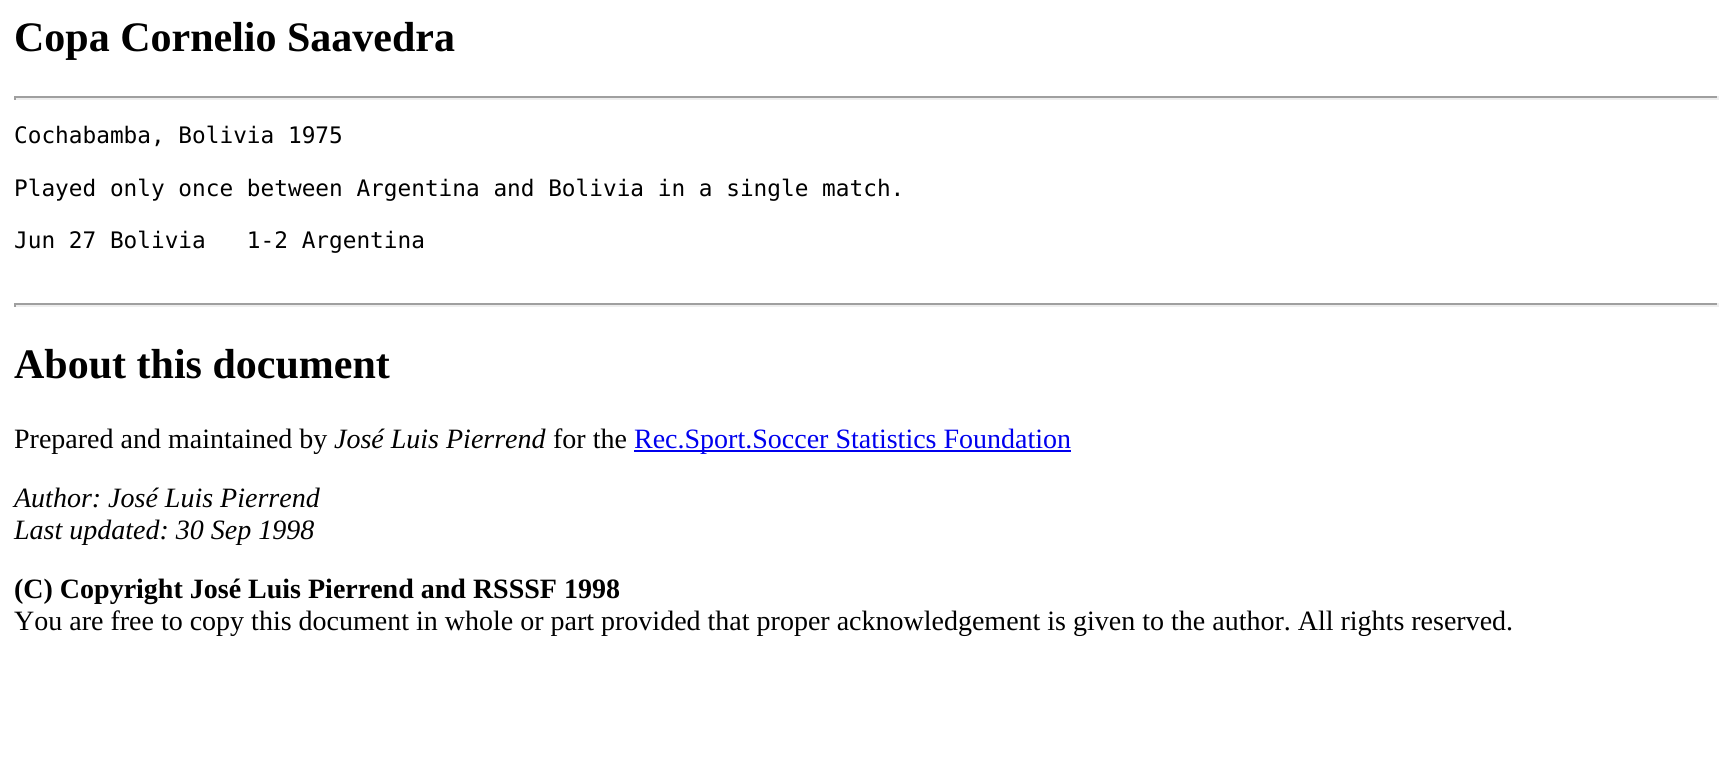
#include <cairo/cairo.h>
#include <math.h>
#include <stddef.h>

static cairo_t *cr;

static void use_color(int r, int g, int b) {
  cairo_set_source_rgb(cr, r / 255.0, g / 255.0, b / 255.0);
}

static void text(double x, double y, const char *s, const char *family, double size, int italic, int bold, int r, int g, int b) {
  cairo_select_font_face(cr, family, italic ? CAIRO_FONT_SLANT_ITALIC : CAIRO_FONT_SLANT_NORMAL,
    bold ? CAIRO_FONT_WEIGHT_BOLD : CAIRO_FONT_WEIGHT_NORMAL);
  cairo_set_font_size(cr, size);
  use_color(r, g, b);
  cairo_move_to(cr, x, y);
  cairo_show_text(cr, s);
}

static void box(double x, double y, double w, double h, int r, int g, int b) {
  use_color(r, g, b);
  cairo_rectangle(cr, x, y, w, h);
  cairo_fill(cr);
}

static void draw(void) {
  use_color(255, 255, 255);
  cairo_paint(cr);
  box(14, 96, 1705, 2, 159, 159, 159);
  box(1717, 96, 2, 4, 238, 238, 238);
  box(14, 98, 1705, 2, 238, 238, 238);
  box(14, 96, 2, 4, 159, 159, 159);
  box(14, 303, 1705, 2, 159, 159, 159);
  box(1717, 303, 2, 4, 238, 238, 238);
  box(14, 305, 1705, 2, 238, 238, 238);
  box(14, 303, 2, 4, 159, 159, 159);
  box(634, 450, 437, 2, 0, 0, 238);
  text(14, 51, "Copa Cornelio Saavedra", "Liberation Serif", 42, 0, 1, 0, 0, 0);
  text(14, 143, "Cochabamba, Bolivia 1975", "DejaVu Sans Mono", 22.75, 0, 0, 0, 0, 0);
  text(14, 196, "Played only once between Argentina and Bolivia in a single match.", "DejaVu Sans Mono", 22.75, 0, 0, 0, 0, 0);
  text(14, 248, "Jun 27 Bolivia   1-2 Argentina", "DejaVu Sans Mono", 22.75, 0, 0, 0, 0, 0);
  text(14, 378, "About this document", "Liberation Serif", 42, 0, 1, 0, 0, 0);
  text(14, 448, "Prepared and maintained by", "Liberation Serif", 28, 0, 0, 0, 0, 0);
  text(334, 448, "José Luis Pierrend", "Liberation Serif", 28, 1, 0, 0, 0, 0);
  text(553, 448, "for the", "Liberation Serif", 28, 0, 0, 0, 0, 0);
  text(634, 448, "Rec.Sport.Soccer Statistics Foundation", "Liberation Serif", 28, 0, 0, 0, 0, 238);
  text(14, 507, "Author: José Luis Pierrend", "Liberation Serif", 28, 1, 0, 0, 0, 0);
  text(14, 539, "Last updated: 30 Sep 1998", "Liberation Serif", 28, 1, 0, 0, 0, 0);
  text(14, 598, "(C) Copyright José Luis Pierrend and RSSSF 1998", "Liberation Serif", 28, 0, 1, 0, 0, 0);
  text(14, 630, "You are free to copy this document in whole or part provided that proper acknowledgement is given to the author. All rights reserved.", "Liberation Serif", 28, 0, 0, 0, 0, 0);
}

int main(void) {
  cairo_surface_t *surface = cairo_image_surface_create(CAIRO_FORMAT_RGB24, 1731, 761);
  cr = cairo_create(surface);
  cairo_font_options_t *options = cairo_font_options_create();
  cairo_font_options_set_hint_metrics(options, CAIRO_HINT_METRICS_OFF);
  cairo_font_options_set_hint_style(options, CAIRO_HINT_STYLE_NONE);
  cairo_set_font_options(cr, options);
  cairo_set_miter_limit(cr, 4);
  draw();
  cairo_surface_write_to_png(surface, "out.png");
  cairo_font_options_destroy(options);
  cairo_destroy(cr);
  cairo_surface_destroy(surface);
  return 0;
}
